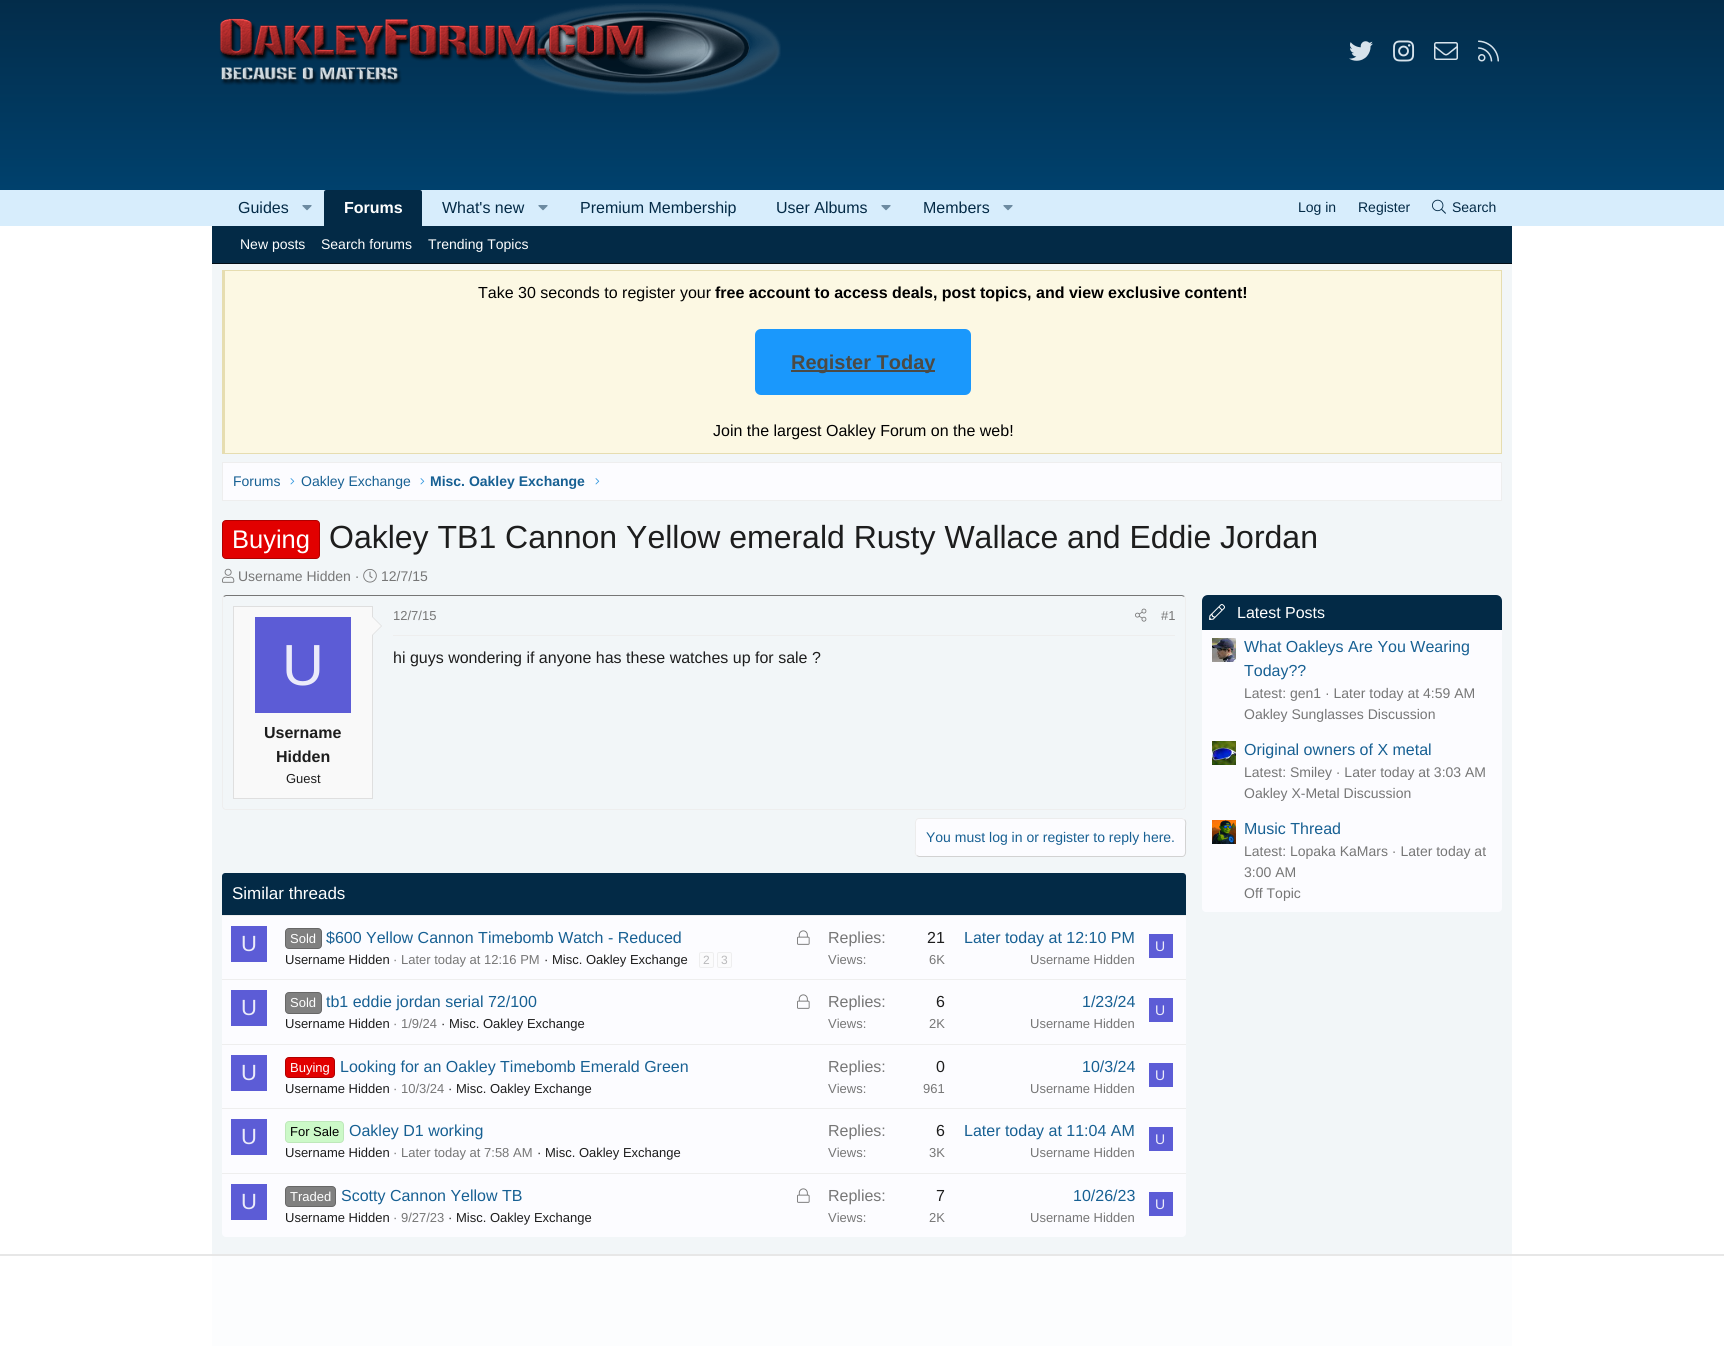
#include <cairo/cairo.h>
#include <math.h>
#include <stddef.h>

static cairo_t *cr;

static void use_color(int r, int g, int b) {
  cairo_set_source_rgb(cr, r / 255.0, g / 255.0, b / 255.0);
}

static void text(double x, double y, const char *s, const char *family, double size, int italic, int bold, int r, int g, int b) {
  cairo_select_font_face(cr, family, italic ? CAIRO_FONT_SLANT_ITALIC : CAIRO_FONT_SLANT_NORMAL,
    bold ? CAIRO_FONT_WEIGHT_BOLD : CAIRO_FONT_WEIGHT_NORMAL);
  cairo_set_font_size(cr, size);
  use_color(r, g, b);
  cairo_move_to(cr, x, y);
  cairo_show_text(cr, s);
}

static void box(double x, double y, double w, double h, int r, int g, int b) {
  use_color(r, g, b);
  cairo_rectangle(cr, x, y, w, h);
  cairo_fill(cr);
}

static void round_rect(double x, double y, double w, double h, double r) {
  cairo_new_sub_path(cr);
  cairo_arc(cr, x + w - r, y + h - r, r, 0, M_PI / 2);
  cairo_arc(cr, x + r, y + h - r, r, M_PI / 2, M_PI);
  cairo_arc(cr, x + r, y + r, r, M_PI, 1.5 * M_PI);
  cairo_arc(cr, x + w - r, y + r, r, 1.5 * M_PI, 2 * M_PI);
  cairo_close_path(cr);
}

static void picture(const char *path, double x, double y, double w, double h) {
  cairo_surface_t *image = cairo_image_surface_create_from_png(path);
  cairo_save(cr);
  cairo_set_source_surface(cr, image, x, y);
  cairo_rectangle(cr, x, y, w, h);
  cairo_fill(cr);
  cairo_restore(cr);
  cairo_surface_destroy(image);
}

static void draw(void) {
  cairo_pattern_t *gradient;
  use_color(255, 255, 255);
  cairo_paint(cr);
  box(0, 1254, 1724, 2, 231, 231, 231);
  gradient = cairo_pattern_create_linear(862, 0, 862, 190);
  cairo_pattern_add_color_stop_rgba(gradient, 0, 0.012, 0.173, 0.29, 1);
  cairo_pattern_add_color_stop_rgba(gradient, 1, 0, 0.255, 0.427, 1);
  cairo_set_source(cr, gradient);
  cairo_pattern_destroy(gradient);
  cairo_rectangle(cr, 0, 0, 1724, 190);
  cairo_fill(cr);
  picture("img_01.png", 219, 3, 562, 93);
  picture("img_02.png", 1349, 41, 24, 20);
  picture("img_03.png", 1393, 40, 22, 22);
  picture("img_04.png", 1434, 42, 24, 18);
  picture("img_05.png", 1478, 40, 21, 22);
  box(0, 190, 1724, 36, 215, 237, 252);
  picture("img_06.png", 302, 205, 10, 6);
  use_color(3, 42, 70);
  cairo_new_path(cr);
  cairo_move_to(cr, 326, 190);
  cairo_line_to(cr, 420, 190);
  cairo_curve_to(cr, 421, 190, 422, 191, 422, 192);
  cairo_line_to(cr, 422, 226);
  cairo_line_to(cr, 324, 226);
  cairo_line_to(cr, 324, 192);
  cairo_curve_to(cr, 324, 191, 325, 190, 326, 190);
  cairo_close_path(cr);
  cairo_fill(cr);
  picture("img_06.png", 538, 205, 10, 6);
  picture("img_06.png", 881, 205, 10, 6);
  picture("img_06.png", 1003, 205, 10, 6);
  picture("img_07.png", 1432, 199, 14, 15);
  box(212, 226, 1300, 37, 3, 42, 70);
  box(212, 263, 1300, 1, 1, 13, 21);
  box(212, 264, 1300, 990, 242, 246, 248);
  box(212, 1256, 1300, 90, 252, 253, 254);
  box(225, 271, 1276, 182, 252, 248, 227);
  box(222, 270, 1280, 1, 230, 221, 176);
  box(1501, 270, 1, 184, 230, 221, 176);
  box(222, 453, 1280, 1, 230, 221, 176);
  box(222, 270, 3, 184, 230, 221, 176);
  use_color(26, 152, 252);
  round_rect(755, 329, 216, 66, 6);
  cairo_fill(cr);
  box(791, 370, 144, 2, 76, 74, 68);
  use_color(252, 252, 255);
  cairo_rectangle(cr, 222.5, 462.5, 1279, 38);
  cairo_fill_preserve(cr);
  use_color(238, 238, 238);
  cairo_set_line_width(cr, 1);
  cairo_stroke(cr);
  picture("img_08.png", 290, 478, 5, 7);
  picture("img_08.png", 420, 478, 5, 7);
  picture("img_08.png", 595, 478, 5, 7);
  use_color(226, 0, 0);
  round_rect(222.5, 520.5, 97, 38, 3.5);
  cairo_fill_preserve(cr);
  use_color(175, 0, 0);
  cairo_stroke(cr);
  picture("img_09.png", 222, 568, 13, 15);
  picture("img_10.png", 363, 569, 14, 14);
  cairo_new_path(cr);
  cairo_move_to(cr, 223.5, 596.5);
  cairo_line_to(cr, 226, 595.5);
  cairo_line_to(cr, 1182, 595.5);
  cairo_line_to(cr, 1184.5, 596.5);
  use_color(118, 118, 118);
  cairo_stroke(cr);
  cairo_new_path(cr);
  cairo_move_to(cr, 1184.5, 596.5);
  cairo_curve_to(cr, 1185, 597, 1185.5, 598, 1185.5, 599);
  cairo_line_to(cr, 1185.5, 806);
  cairo_curve_to(cr, 1185.5, 807, 1185, 808, 1184.5, 808.5);
  cairo_curve_to(cr, 1184, 809, 1183, 809.5, 1182, 809.5);
  cairo_line_to(cr, 226, 809.5);
  cairo_curve_to(cr, 225, 809.5, 224, 809, 223.5, 808.5);
  cairo_curve_to(cr, 223, 808, 222.5, 807, 222.5, 806);
  cairo_line_to(cr, 222.5, 599);
  cairo_curve_to(cr, 222.5, 598, 223, 597, 223.5, 596.5);
  use_color(238, 238, 238);
  cairo_stroke(cr);
  box(393, 635, 782, 1, 238, 238, 238);
  picture("img_11.png", 1135, 608, 12, 14);
  use_color(249, 249, 249);
  cairo_rectangle(cr, 233.5, 606.5, 139, 192);
  cairo_fill_preserve(cr);
  use_color(223, 223, 223);
  cairo_stroke(cr);
  cairo_new_path(cr);
  cairo_move_to(cr, 372, 636);
  cairo_line_to(cr, 372, 616);
  cairo_line_to(cr, 382, 626);
  cairo_close_path(cr);
  cairo_fill(cr);
  use_color(249, 249, 249);
  cairo_new_path(cr);
  cairo_move_to(cr, 372, 635);
  cairo_line_to(cr, 372, 617);
  cairo_line_to(cr, 381, 626);
  cairo_close_path(cr);
  cairo_fill(cr);
  box(255, 617, 96, 96, 92, 92, 214);
  use_color(252, 252, 255);
  round_rect(915, 818, 271, 39, 4);
  cairo_fill(cr);
  cairo_new_path(cr);
  cairo_move_to(cr, 1184.5, 819.5);
  cairo_curve_to(cr, 1186.5, 821.5, 1185.5, 825.5, 1185.5, 827);
  cairo_line_to(cr, 1185.5, 848);
  cairo_curve_to(cr, 1185.5, 850.5, 1186.5, 856.5, 1182, 856.5);
  cairo_line_to(cr, 919, 856.5);
  cairo_line_to(cr, 916.5, 855.5);
  use_color(210, 210, 210);
  cairo_stroke(cr);
  cairo_new_path(cr);
  cairo_move_to(cr, 916.5, 855.5);
  cairo_curve_to(cr, 914.5, 853.5, 915.5, 849.5, 915.5, 848);
  cairo_line_to(cr, 915.5, 827);
  cairo_curve_to(cr, 915.5, 824.5, 914.5, 818.5, 919, 818.5);
  cairo_line_to(cr, 1182, 818.5);
  cairo_line_to(cr, 1184.5, 819.5);
  use_color(236, 236, 236);
  cairo_stroke(cr);
  use_color(252, 252, 255);
  round_rect(222, 873, 964, 364, 4);
  cairo_fill(cr);
  use_color(3, 42, 70);
  cairo_new_path(cr);
  cairo_move_to(cr, 225, 873);
  cairo_line_to(cr, 1183, 873);
  cairo_curve_to(cr, 1184.5, 873, 1186, 874.5, 1186, 876);
  cairo_line_to(cr, 1186, 916);
  cairo_line_to(cr, 222, 916);
  cairo_line_to(cr, 222, 876);
  cairo_curve_to(cr, 222, 874.5, 223.5, 873, 225, 873);
  cairo_close_path(cr);
  cairo_fill(cr);
  box(222, 915, 964, 1, 238, 238, 238);
  box(231, 926, 36, 36, 92, 92, 214);
  use_color(128, 128, 128);
  round_rect(285.5, 928.5, 36, 20, 3.5);
  cairo_fill_preserve(cr);
  use_color(103, 103, 103);
  cairo_stroke(cr);
  picture("img_12.png", 797, 930, 13, 15);
  use_color(251, 251, 252);
  round_rect(699.5, 952.5, 14, 15, 1.5);
  cairo_fill_preserve(cr);
  use_color(238, 238, 239);
  cairo_stroke(cr);
  use_color(251, 251, 252);
  round_rect(717.5, 952.5, 14, 15, 1.5);
  cairo_fill_preserve(cr);
  use_color(238, 238, 239);
  cairo_stroke(cr);
  box(1149, 934, 24, 24, 92, 92, 214);
  box(222, 979, 964, 1, 238, 238, 238);
  box(231, 990, 36, 36, 92, 92, 214);
  use_color(128, 128, 128);
  round_rect(285.5, 992.5, 36, 21, 3.5);
  cairo_fill_preserve(cr);
  use_color(103, 103, 103);
  cairo_stroke(cr);
  picture("img_12.png", 797, 994, 13, 15);
  box(1149, 998, 24, 24, 92, 92, 214);
  box(222, 1044, 964, 1, 238, 238, 238);
  box(231, 1055, 36, 36, 92, 92, 214);
  use_color(226, 0, 0);
  round_rect(285.5, 1057.5, 49, 20, 3.5);
  cairo_fill_preserve(cr);
  use_color(175, 0, 0);
  cairo_stroke(cr);
  box(1149, 1063, 24, 24, 92, 92, 214);
  box(222, 1108, 964, 1, 238, 238, 238);
  box(231, 1119, 36, 36, 92, 92, 214);
  use_color(204, 249, 200);
  round_rect(285.5, 1121.5, 58, 21, 3.5);
  cairo_fill_preserve(cr);
  use_color(190, 232, 186);
  cairo_stroke(cr);
  box(1149, 1127, 24, 24, 92, 92, 214);
  box(222, 1173, 964, 1, 238, 238, 238);
  box(231, 1184, 36, 36, 92, 92, 214);
  use_color(128, 128, 128);
  round_rect(285.5, 1186.5, 50, 20, 3.5);
  cairo_fill_preserve(cr);
  use_color(103, 103, 103);
  cairo_stroke(cr);
  picture("img_12.png", 797, 1188, 13, 15);
  box(1149, 1192, 24, 24, 92, 92, 214);
  use_color(252, 252, 255);
  round_rect(1202, 595, 300, 317, 4);
  cairo_fill(cr);
  use_color(3, 42, 70);
  cairo_new_path(cr);
  cairo_move_to(cr, 1208, 595);
  cairo_line_to(cr, 1496, 595);
  cairo_curve_to(cr, 1499.5, 595, 1502, 597.5, 1502, 601);
  cairo_line_to(cr, 1502, 630);
  cairo_line_to(cr, 1202, 630);
  cairo_line_to(cr, 1202, 601);
  cairo_curve_to(cr, 1202, 597.5, 1204.5, 595, 1208, 595);
  cairo_close_path(cr);
  cairo_fill(cr);
  picture("img_13.png", 1209, 604, 16, 16);
  picture("img_14.png", 1212, 638, 24, 24);
  picture("img_15.png", 1212, 741, 24, 24);
  picture("img_16.png", 1212, 820, 24, 24);
  text(238, 213, "Guides", "Liberation Sans", 16, 0, 0, 3, 42, 70);
  text(344, 213, "Forums", "Liberation Sans", 16, 0, 1, 255, 255, 255);
  text(442, 213, "What's new", "Liberation Sans", 16, 0, 0, 3, 42, 70);
  text(580, 213, "Premium Membership", "Liberation Sans", 16, 0, 0, 3, 42, 70);
  text(776, 213, "User Albums", "Liberation Sans", 16, 0, 0, 3, 42, 70);
  text(923, 213, "Members", "Liberation Sans", 16, 0, 0, 3, 42, 70);
  text(1298, 212, "Log in", "Liberation Sans", 14, 0, 0, 3, 42, 70);
  text(1358, 212, "Register", "Liberation Sans", 14, 0, 0, 3, 42, 70);
  text(1452, 212, "Search", "Liberation Sans", 14, 0, 0, 3, 42, 70);
  text(240, 249, "New posts", "Liberation Sans", 14, 0, 0, 255, 255, 255);
  text(321, 249, "Search forums", "Liberation Sans", 14, 0, 0, 255, 255, 255);
  text(428, 249, "Trending Topics", "Liberation Sans", 14, 0, 0, 255, 255, 255);
  text(478, 298, "Take 30 seconds to register your", "Liberation Sans", 16, 0, 0, 0, 0, 0);
  text(715, 298, "free account to access deals, post topics, and view exclusive content!", "Liberation Sans", 16, 0, 1, 0, 0, 0);
  text(791, 369, "Register Today", "Liberation Sans", 20, 0, 1, 76, 74, 68);
  text(713, 436, "Join the largest Oakley Forum on the web!", "Liberation Sans", 16, 0, 0, 0, 0, 0);
  text(233, 486, "Forums", "Liberation Sans", 14, 0, 0, 23, 96, 147);
  text(301, 486, "Oakley Exchange", "Liberation Sans", 14, 0, 0, 23, 96, 147);
  text(430, 486, "Misc. Oakley Exchange", "Liberation Sans", 14, 0, 1, 23, 96, 147);
  text(232, 548, "Buying", "Liberation Sans", 25.5, 0, 0, 255, 255, 255);
  text(329, 548, "Oakley TB1 Cannon Yellow emerald Rusty Wallace and Eddie Jordan", "Liberation Sans", 32, 0, 0, 29, 29, 29);
  text(238, 581, "Username Hidden ·", "Liberation Sans", 14, 0, 0, 118, 118, 118);
  text(381, 581, "12/7/15", "Liberation Sans", 14, 0, 0, 118, 118, 118);
  text(393, 620, "12/7/15", "Liberation Sans", 13, 0, 0, 118, 118, 118);
  text(1161, 620, "#1", "Liberation Sans", 13, 0, 0, 118, 118, 118);
  text(393, 663, "hi guys wondering if anyone has these watches up for sale ?", "Liberation Sans", 16, 0, 0, 29, 29, 29);
  text(282, 685, "U", "Liberation Sans", 58, 0, 0, 235, 235, 250);
  text(264, 738, "Username", "Liberation Sans", 16, 0, 1, 29, 29, 29);
  text(276, 762, "Hidden", "Liberation Sans", 16, 0, 1, 29, 29, 29);
  text(286, 783, "Guest", "Liberation Sans", 13, 0, 0, 29, 29, 29);
  text(926, 842, "You must log in or register to reply here.", "Liberation Sans", 14, 0, 0, 23, 96, 147);
  text(232, 899, "Similar threads", "Liberation Sans", 17, 0, 0, 255, 255, 255);
  text(241, 951, "U", "Liberation Sans", 22, 0, 0, 235, 235, 250);
  text(290, 943, "Sold", "Liberation Sans", 13, 0, 0, 255, 255, 255);
  text(326, 943, "$600 Yellow Cannon Timebomb Watch - Reduced", "Liberation Sans", 16, 0, 0, 23, 96, 147);
  text(285, 964, "Username Hidden", "Liberation Sans", 13, 0, 0, 29, 29, 29);
  text(393, 964, "· Later today at 12:16 PM", "Liberation Sans", 13, 0, 0, 118, 118, 118);
  text(544, 964, "· Misc. Oakley Exchange", "Liberation Sans", 13, 0, 0, 29, 29, 29);
  text(703, 964, "2", "Liberation Sans", 12, 0, 0, 185, 185, 187);
  text(721, 964, "3", "Liberation Sans", 12, 0, 0, 185, 185, 187);
  text(828, 943, "Replies:", "Liberation Sans", 16, 0, 0, 118, 118, 118);
  text(927, 943, "21", "Liberation Sans", 16, 0, 0, 29, 29, 29);
  text(828, 964, "Views:", "Liberation Sans", 13, 0, 0, 118, 118, 118);
  text(929, 964, "6K", "Liberation Sans", 13, 0, 0, 118, 118, 118);
  text(964, 943, "Later today at 12:10 PM", "Liberation Sans", 16, 0, 0, 23, 96, 147);
  text(1030, 964, "Username Hidden", "Liberation Sans", 13, 0, 0, 118, 118, 118);
  text(1155, 951, "U", "Liberation Sans", 14, 0, 0, 235, 235, 250);
  text(241, 1015, "U", "Liberation Sans", 22, 0, 0, 235, 235, 250);
  text(290, 1007, "Sold", "Liberation Sans", 13, 0, 0, 255, 255, 255);
  text(326, 1007, "tb1 eddie jordan serial 72/100", "Liberation Sans", 16, 0, 0, 23, 96, 147);
  text(285, 1028, "Username Hidden", "Liberation Sans", 13, 0, 0, 29, 29, 29);
  text(393, 1028, "· 1/9/24", "Liberation Sans", 13, 0, 0, 118, 118, 118);
  text(441, 1028, "· Misc. Oakley Exchange", "Liberation Sans", 13, 0, 0, 29, 29, 29);
  text(828, 1007, "Replies:", "Liberation Sans", 16, 0, 0, 118, 118, 118);
  text(936, 1007, "6", "Liberation Sans", 16, 0, 0, 29, 29, 29);
  text(828, 1028, "Views:", "Liberation Sans", 13, 0, 0, 118, 118, 118);
  text(929, 1028, "2K", "Liberation Sans", 13, 0, 0, 118, 118, 118);
  text(1082, 1007, "1/23/24", "Liberation Sans", 16, 0, 0, 23, 96, 147);
  text(1030, 1028, "Username Hidden", "Liberation Sans", 13, 0, 0, 118, 118, 118);
  text(1155, 1015, "U", "Liberation Sans", 14, 0, 0, 235, 235, 250);
  text(241, 1080, "U", "Liberation Sans", 22, 0, 0, 235, 235, 250);
  text(290, 1072, "Buying", "Liberation Sans", 13, 0, 0, 255, 255, 255);
  text(340, 1072, "Looking for an Oakley Timebomb Emerald Green", "Liberation Sans", 16, 0, 0, 23, 96, 147);
  text(285, 1093, "Username Hidden", "Liberation Sans", 13, 0, 0, 29, 29, 29);
  text(393, 1093, "· 10/3/24", "Liberation Sans", 13, 0, 0, 118, 118, 118);
  text(448, 1093, "· Misc. Oakley Exchange", "Liberation Sans", 13, 0, 0, 29, 29, 29);
  text(828, 1072, "Replies:", "Liberation Sans", 16, 0, 0, 118, 118, 118);
  text(936, 1072, "0", "Liberation Sans", 16, 0, 0, 29, 29, 29);
  text(828, 1093, "Views:", "Liberation Sans", 13, 0, 0, 118, 118, 118);
  text(923, 1093, "961", "Liberation Sans", 13, 0, 0, 118, 118, 118);
  text(1082, 1072, "10/3/24", "Liberation Sans", 16, 0, 0, 23, 96, 147);
  text(1030, 1093, "Username Hidden", "Liberation Sans", 13, 0, 0, 118, 118, 118);
  text(1155, 1080, "U", "Liberation Sans", 14, 0, 0, 235, 235, 250);
  text(241, 1144, "U", "Liberation Sans", 22, 0, 0, 235, 235, 250);
  text(290, 1136, "For Sale", "Liberation Sans", 13, 0, 0, 0, 0, 0);
  text(349, 1136, "Oakley D1 working", "Liberation Sans", 16, 0, 0, 23, 96, 147);
  text(285, 1157, "Username Hidden", "Liberation Sans", 13, 0, 0, 29, 29, 29);
  text(393, 1157, "· Later today at 7:58 AM", "Liberation Sans", 13, 0, 0, 118, 118, 118);
  text(537, 1157, "· Misc. Oakley Exchange", "Liberation Sans", 13, 0, 0, 29, 29, 29);
  text(828, 1136, "Replies:", "Liberation Sans", 16, 0, 0, 118, 118, 118);
  text(936, 1136, "6", "Liberation Sans", 16, 0, 0, 29, 29, 29);
  text(828, 1157, "Views:", "Liberation Sans", 13, 0, 0, 118, 118, 118);
  text(929, 1157, "3K", "Liberation Sans", 13, 0, 0, 118, 118, 118);
  text(964, 1136, "Later today at 11:04 AM", "Liberation Sans", 16, 0, 0, 23, 96, 147);
  text(1030, 1157, "Username Hidden", "Liberation Sans", 13, 0, 0, 118, 118, 118);
  text(1155, 1144, "U", "Liberation Sans", 14, 0, 0, 235, 235, 250);
  text(241, 1209, "U", "Liberation Sans", 22, 0, 0, 235, 235, 250);
  text(290, 1201, "Traded", "Liberation Sans", 13, 0, 0, 255, 255, 255);
  text(341, 1201, "Scotty Cannon Yellow TB", "Liberation Sans", 16, 0, 0, 23, 96, 147);
  text(285, 1222, "Username Hidden", "Liberation Sans", 13, 0, 0, 29, 29, 29);
  text(393, 1222, "· 9/27/23", "Liberation Sans", 13, 0, 0, 118, 118, 118);
  text(448, 1222, "· Misc. Oakley Exchange", "Liberation Sans", 13, 0, 0, 29, 29, 29);
  text(828, 1201, "Replies:", "Liberation Sans", 16, 0, 0, 118, 118, 118);
  text(936, 1201, "7", "Liberation Sans", 16, 0, 0, 29, 29, 29);
  text(828, 1222, "Views:", "Liberation Sans", 13, 0, 0, 118, 118, 118);
  text(929, 1222, "2K", "Liberation Sans", 13, 0, 0, 118, 118, 118);
  text(1073, 1201, "10/26/23", "Liberation Sans", 16, 0, 0, 23, 96, 147);
  text(1030, 1222, "Username Hidden", "Liberation Sans", 13, 0, 0, 118, 118, 118);
  text(1155, 1209, "U", "Liberation Sans", 14, 0, 0, 235, 235, 250);
  text(1237, 618, "Latest Posts", "Liberation Sans", 16, 0, 0, 255, 255, 255);
  text(1244, 652, "What Oakleys Are You Wearing", "Liberation Sans", 16, 0, 0, 23, 96, 147);
  text(1244, 676, "Today?\077", "Liberation Sans", 16, 0, 0, 23, 96, 147);
  text(1244, 698, "Latest: gen1 · Later today at 4:59 AM", "Liberation Sans", 14, 0, 0, 118, 118, 118);
  text(1244, 719, "Oakley Sunglasses Discussion", "Liberation Sans", 14, 0, 0, 118, 118, 118);
  text(1244, 755, "Original owners of X metal", "Liberation Sans", 16, 0, 0, 23, 96, 147);
  text(1244, 777, "Latest: Smiley · Later today at 3:03 AM", "Liberation Sans", 14, 0, 0, 118, 118, 118);
  text(1244, 798, "Oakley X-Metal Discussion", "Liberation Sans", 14, 0, 0, 118, 118, 118);
  text(1244, 834, "Music Thread", "Liberation Sans", 16, 0, 0, 23, 96, 147);
  text(1244, 856, "Latest: Lopaka KaMars · Later today at", "Liberation Sans", 14, 0, 0, 118, 118, 118);
  text(1244, 877, "3:00 AM", "Liberation Sans", 14, 0, 0, 118, 118, 118);
  text(1244, 898, "Off Topic", "Liberation Sans", 14, 0, 0, 118, 118, 118);
}

int main(void) {
  cairo_surface_t *surface = cairo_image_surface_create(CAIRO_FORMAT_RGB24, 1724, 1346);
  cr = cairo_create(surface);
  cairo_font_options_t *options = cairo_font_options_create();
  cairo_font_options_set_hint_metrics(options, CAIRO_HINT_METRICS_OFF);
  cairo_font_options_set_hint_style(options, CAIRO_HINT_STYLE_NONE);
  cairo_set_font_options(cr, options);
  cairo_set_miter_limit(cr, 4);
  draw();
  cairo_surface_write_to_png(surface, "out.png");
  cairo_font_options_destroy(options);
  cairo_destroy(cr);
  cairo_surface_destroy(surface);
  return 0;
}
